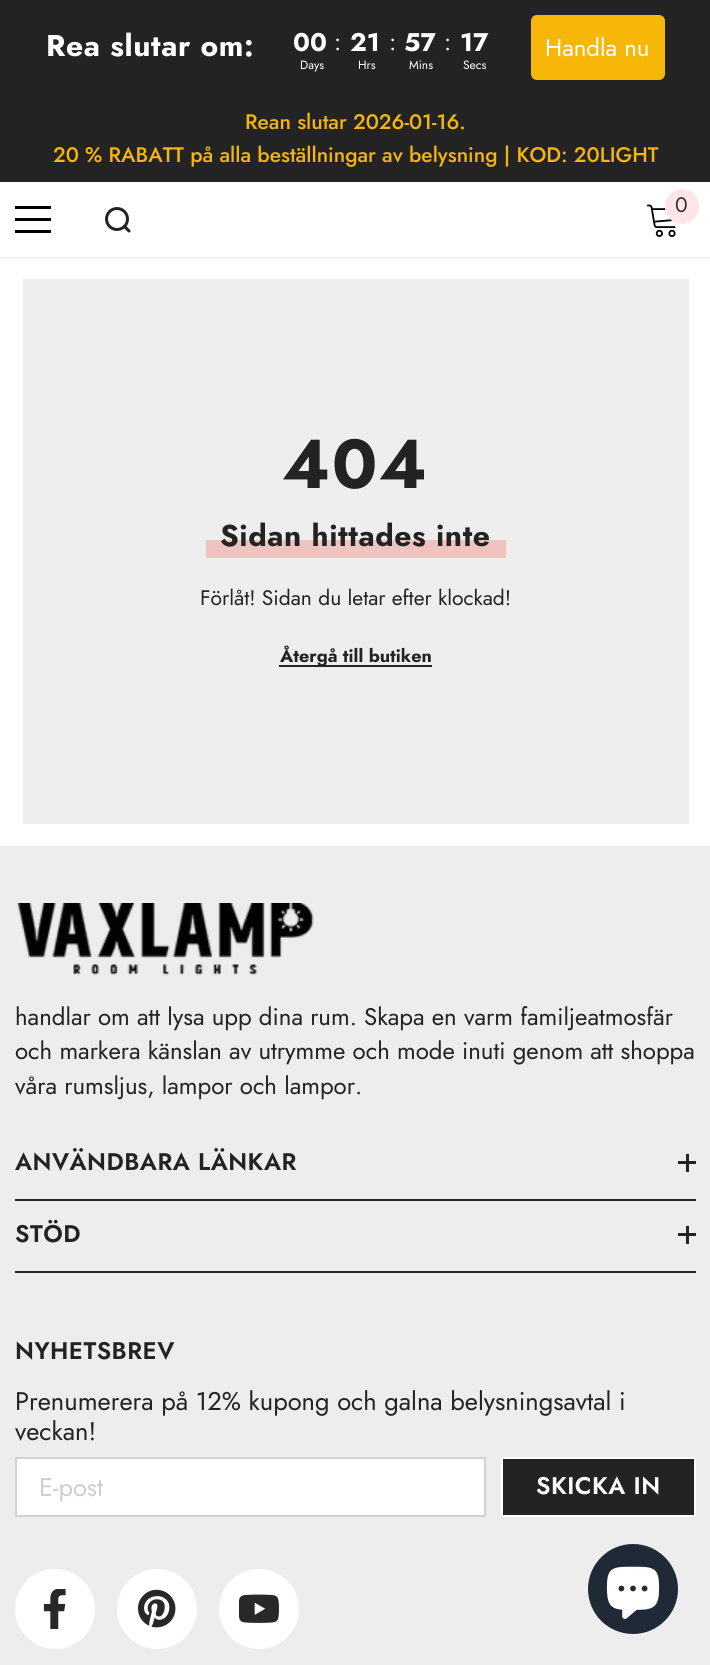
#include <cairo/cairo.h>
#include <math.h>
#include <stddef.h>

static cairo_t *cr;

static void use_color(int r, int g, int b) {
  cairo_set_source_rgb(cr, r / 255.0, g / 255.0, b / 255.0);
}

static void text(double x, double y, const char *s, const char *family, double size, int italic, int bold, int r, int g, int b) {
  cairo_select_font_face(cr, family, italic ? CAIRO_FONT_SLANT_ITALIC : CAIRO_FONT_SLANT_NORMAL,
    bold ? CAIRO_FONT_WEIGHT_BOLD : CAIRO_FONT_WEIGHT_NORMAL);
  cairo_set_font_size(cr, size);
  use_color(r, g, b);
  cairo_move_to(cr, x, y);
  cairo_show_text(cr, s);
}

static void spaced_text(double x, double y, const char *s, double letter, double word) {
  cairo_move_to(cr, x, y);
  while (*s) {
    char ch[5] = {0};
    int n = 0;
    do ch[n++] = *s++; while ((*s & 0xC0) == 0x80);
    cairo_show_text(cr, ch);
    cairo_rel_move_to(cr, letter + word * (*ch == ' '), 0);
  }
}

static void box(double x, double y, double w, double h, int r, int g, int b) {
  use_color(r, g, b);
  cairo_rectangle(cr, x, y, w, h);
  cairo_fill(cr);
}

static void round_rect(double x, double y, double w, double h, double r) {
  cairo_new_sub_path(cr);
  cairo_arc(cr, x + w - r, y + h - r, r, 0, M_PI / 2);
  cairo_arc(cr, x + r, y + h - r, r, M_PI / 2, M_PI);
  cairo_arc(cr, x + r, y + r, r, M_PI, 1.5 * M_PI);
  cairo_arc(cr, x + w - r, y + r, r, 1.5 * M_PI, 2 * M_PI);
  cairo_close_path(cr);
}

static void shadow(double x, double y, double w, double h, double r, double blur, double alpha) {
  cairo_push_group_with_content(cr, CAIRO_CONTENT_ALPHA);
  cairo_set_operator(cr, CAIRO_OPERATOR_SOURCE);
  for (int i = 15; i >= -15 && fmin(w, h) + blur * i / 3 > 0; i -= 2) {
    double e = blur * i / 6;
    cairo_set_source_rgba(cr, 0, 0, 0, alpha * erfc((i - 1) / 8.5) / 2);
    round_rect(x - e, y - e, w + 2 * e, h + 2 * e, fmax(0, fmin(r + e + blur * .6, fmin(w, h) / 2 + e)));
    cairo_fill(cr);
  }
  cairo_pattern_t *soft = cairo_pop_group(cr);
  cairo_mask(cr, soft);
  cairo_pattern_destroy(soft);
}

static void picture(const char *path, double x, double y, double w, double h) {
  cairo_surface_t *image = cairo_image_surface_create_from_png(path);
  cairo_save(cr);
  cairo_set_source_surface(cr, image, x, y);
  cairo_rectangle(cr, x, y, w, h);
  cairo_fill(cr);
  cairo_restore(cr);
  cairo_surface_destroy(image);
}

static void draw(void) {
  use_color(255, 255, 255);
  cairo_paint(cr);
  use_color(0, 0, 0);
  shadow(0, 183, 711, 75, 0, 2, 0.1);
  box(0, 0, 710, 182, 35, 35, 35);
  use_color(246, 183, 9);
  round_rect(531, 15, 134, 65, 6);
  cairo_fill(cr);
  box(0, 182, 710, 75, 255, 255, 255);
  box(15, 218, 36, 3, 0, 0, 0);
  box(15, 206, 36, 3, 0, 0, 0);
  box(15, 230, 36, 3, 0, 0, 0);
  cairo_arc(cr, 117, 219, 10.5, 0, 2 * M_PI);
  use_color(35, 35, 35);
  cairo_set_line_width(cr, 3);
  cairo_stroke(cr);
  cairo_new_path(cr);
  cairo_move_to(cr, 124.5, 226.5);
  cairo_line_to(cr, 129, 231);
  cairo_set_line_cap(cr, CAIRO_LINE_CAP_ROUND);
  cairo_set_line_join(cr, CAIRO_LINE_JOIN_ROUND);
  cairo_stroke(cr);
  picture("img_01.png", 646, 204, 30, 33);
  use_color(255, 229, 232);
  round_rect(665, 189, 34, 35, 17);
  cairo_fill(cr);
  box(23, 279, 666, 545, 238, 238, 238);
  box(206, 540, 300, 18, 239, 195, 192);
  box(279, 665, 153, 2, 35, 35, 35);
  box(0, 846, 710, 819, 237, 237, 237);
  picture("img_02.png", 16, 903, 298, 73);
  box(15, 1199, 681, 2, 35, 35, 35);
  box(686, 1154, 3, 18, 35, 35, 35);
  box(678, 1161, 18, 3, 35, 35, 35);
  box(15, 1271, 681, 2, 35, 35, 35);
  box(686, 1226, 3, 18, 35, 35, 35);
  box(678, 1233, 18, 3, 35, 35, 35);
  use_color(255, 255, 255);
  cairo_rectangle(cr, 16, 1458, 469, 58);
  cairo_fill_preserve(cr);
  use_color(211, 211, 211);
  cairo_set_line_width(cr, 2);
  cairo_set_line_cap(cr, CAIRO_LINE_CAP_BUTT);
  cairo_set_line_join(cr, CAIRO_LINE_JOIN_MITER);
  cairo_stroke(cr);
  use_color(35, 35, 35);
  cairo_rectangle(cr, 502, 1458, 193, 58);
  cairo_fill_preserve(cr);
  use_color(255, 255, 255);
  cairo_stroke(cr);
  cairo_arc(cr, 55, 1609, 39, 0, 2 * M_PI);
  cairo_fill_preserve(cr);
  cairo_stroke(cr);
  picture("img_03.png", 43, 1589, 23, 40);
  cairo_arc(cr, 157, 1609, 39, 0, 2 * M_PI);
  cairo_fill_preserve(cr);
  cairo_stroke(cr);
  picture("img_04.png", 137, 1589, 39, 39);
  cairo_arc(cr, 259, 1609, 39, 0, 2 * M_PI);
  cairo_fill_preserve(cr);
  cairo_stroke(cr);
  picture("img_05.png", 239, 1594, 40, 29);
  use_color(32, 42, 54);
  cairo_arc(cr, 633, 1589, 45, 0, 2 * M_PI);
  cairo_fill(cr);
  picture("img_06.png", 606, 1566, 54, 53);
  cairo_select_font_face(cr, "Jost", CAIRO_FONT_SLANT_NORMAL, CAIRO_FONT_WEIGHT_BOLD);
  cairo_set_font_size(cr, 30);
  use_color(255, 255, 255);
  spaced_text(46, 56, "Rea slutar om:", 0.6, 0);
  text(293, 51, "00", "Jost", 25.5, 0, 1, 255, 255, 255);
  text(334, 50, ":", "Jost", 24, 0, 0, 255, 255, 255);
  text(350, 51, "21", "Jost", 25.5, 0, 1, 255, 255, 255);
  text(389, 50, ":", "Jost", 24, 0, 0, 255, 255, 255);
  text(404, 51, "57", "Jost", 25.5, 0, 1, 255, 255, 255);
  text(444, 50, ":", "Jost", 24, 0, 0, 255, 255, 255);
  text(460, 51, "17", "Jost", 25.5, 0, 1, 255, 255, 255);
  text(300, 69, "Days", "Jost", 12, 0, 0, 255, 255, 255);
  text(358, 69, "Hrs", "Jost", 12, 0, 0, 255, 255, 255);
  text(409, 69, "Mins", "Jost", 12, 0, 0, 255, 255, 255);
  text(463, 69, "Secs", "Jost", 12, 0, 0, 255, 255, 255);
  text(545, 56, "Handla nu", "Jost", 24, 0, 0, 255, 255, 255);
  text(245, 129, "Rean slutar 2026-01-16.", "Jost Medium", 21, 0, 0, 246, 183, 9);
  text(53, 162, "20 % RABATT på alla beställningar av belysning | KOD: 20LIGHT", "Jost Medium", 21, 0, 0, 246, 183, 9);
  text(675, 212, "0", "Jost", 21, 0, 0, 50, 50, 50);
  cairo_select_font_face(cr, "Jost", CAIRO_FONT_SLANT_NORMAL, CAIRO_FONT_WEIGHT_BOLD);
  cairo_set_font_size(cr, 69);
  use_color(35, 35, 35);
  spaced_text(282, 488, "404", 1.5, 0);
  cairo_set_font_size(cr, 30);
  spaced_text(220, 546, "Sidan hittades inte", 0.6, 0);
  text(200, 605, "Förlåt! Sidan du letar efter klockad!", "Jost", 21, 0, 0, 35, 35, 35);
  text(280, 662, "Återgå till butiken", "Jost", 18, 0, 1, 35, 35, 35);
  text(15, 1025, "handlar om att lysa upp dina rum. Skapa en varm familjeatmosfär", "Jost", 24, 0, 0, 35, 35, 35);
  text(15, 1059, "och markera känslan av utrymme och mode inuti genom att shoppa", "Jost", 24, 0, 0, 35, 35, 35);
  text(15, 1094, "våra rumsljus, lampor och lampor.", "Jost", 24, 0, 0, 35, 35, 35);
  cairo_select_font_face(cr, "Jost SemiBold", CAIRO_FONT_SLANT_NORMAL, CAIRO_FONT_WEIGHT_NORMAL);
  spaced_text(15, 1170, "ANVÄNDBARA LÄNKAR", 0.5, 0);
  spaced_text(15, 1242, "STÖD", 0.5, 0);
  spaced_text(15, 1359, "NYHETSBREV", 0.5, 0);
  text(15, 1410, "Prenumerera på 12% kupong och galna belysningsavtal i", "Jost", 25.5, 0, 0, 35, 35, 35);
  text(15, 1440, "veckan!", "Jost", 25.5, 0, 0, 35, 35, 35);
  text(39, 1496, "E-post", "Jost", 25.5, 0, 0, 207, 207, 207);
  cairo_select_font_face(cr, "Jost SemiBold", CAIRO_FONT_SLANT_NORMAL, CAIRO_FONT_WEIGHT_NORMAL);
  cairo_set_font_size(cr, 24);
  use_color(255, 255, 255);
  spaced_text(536, 1494, "SKICKA IN", 0.5, 0);
}

int main(void) {
  cairo_surface_t *surface = cairo_image_surface_create(CAIRO_FORMAT_RGB24, 710, 1665);
  cr = cairo_create(surface);
  cairo_font_options_t *options = cairo_font_options_create();
  cairo_font_options_set_hint_metrics(options, CAIRO_HINT_METRICS_OFF);
  cairo_font_options_set_hint_style(options, CAIRO_HINT_STYLE_NONE);
  cairo_set_font_options(cr, options);
  cairo_set_miter_limit(cr, 4);
  draw();
  cairo_surface_write_to_png(surface, "out.png");
  cairo_font_options_destroy(options);
  cairo_destroy(cr);
  cairo_surface_destroy(surface);
  return 0;
}
